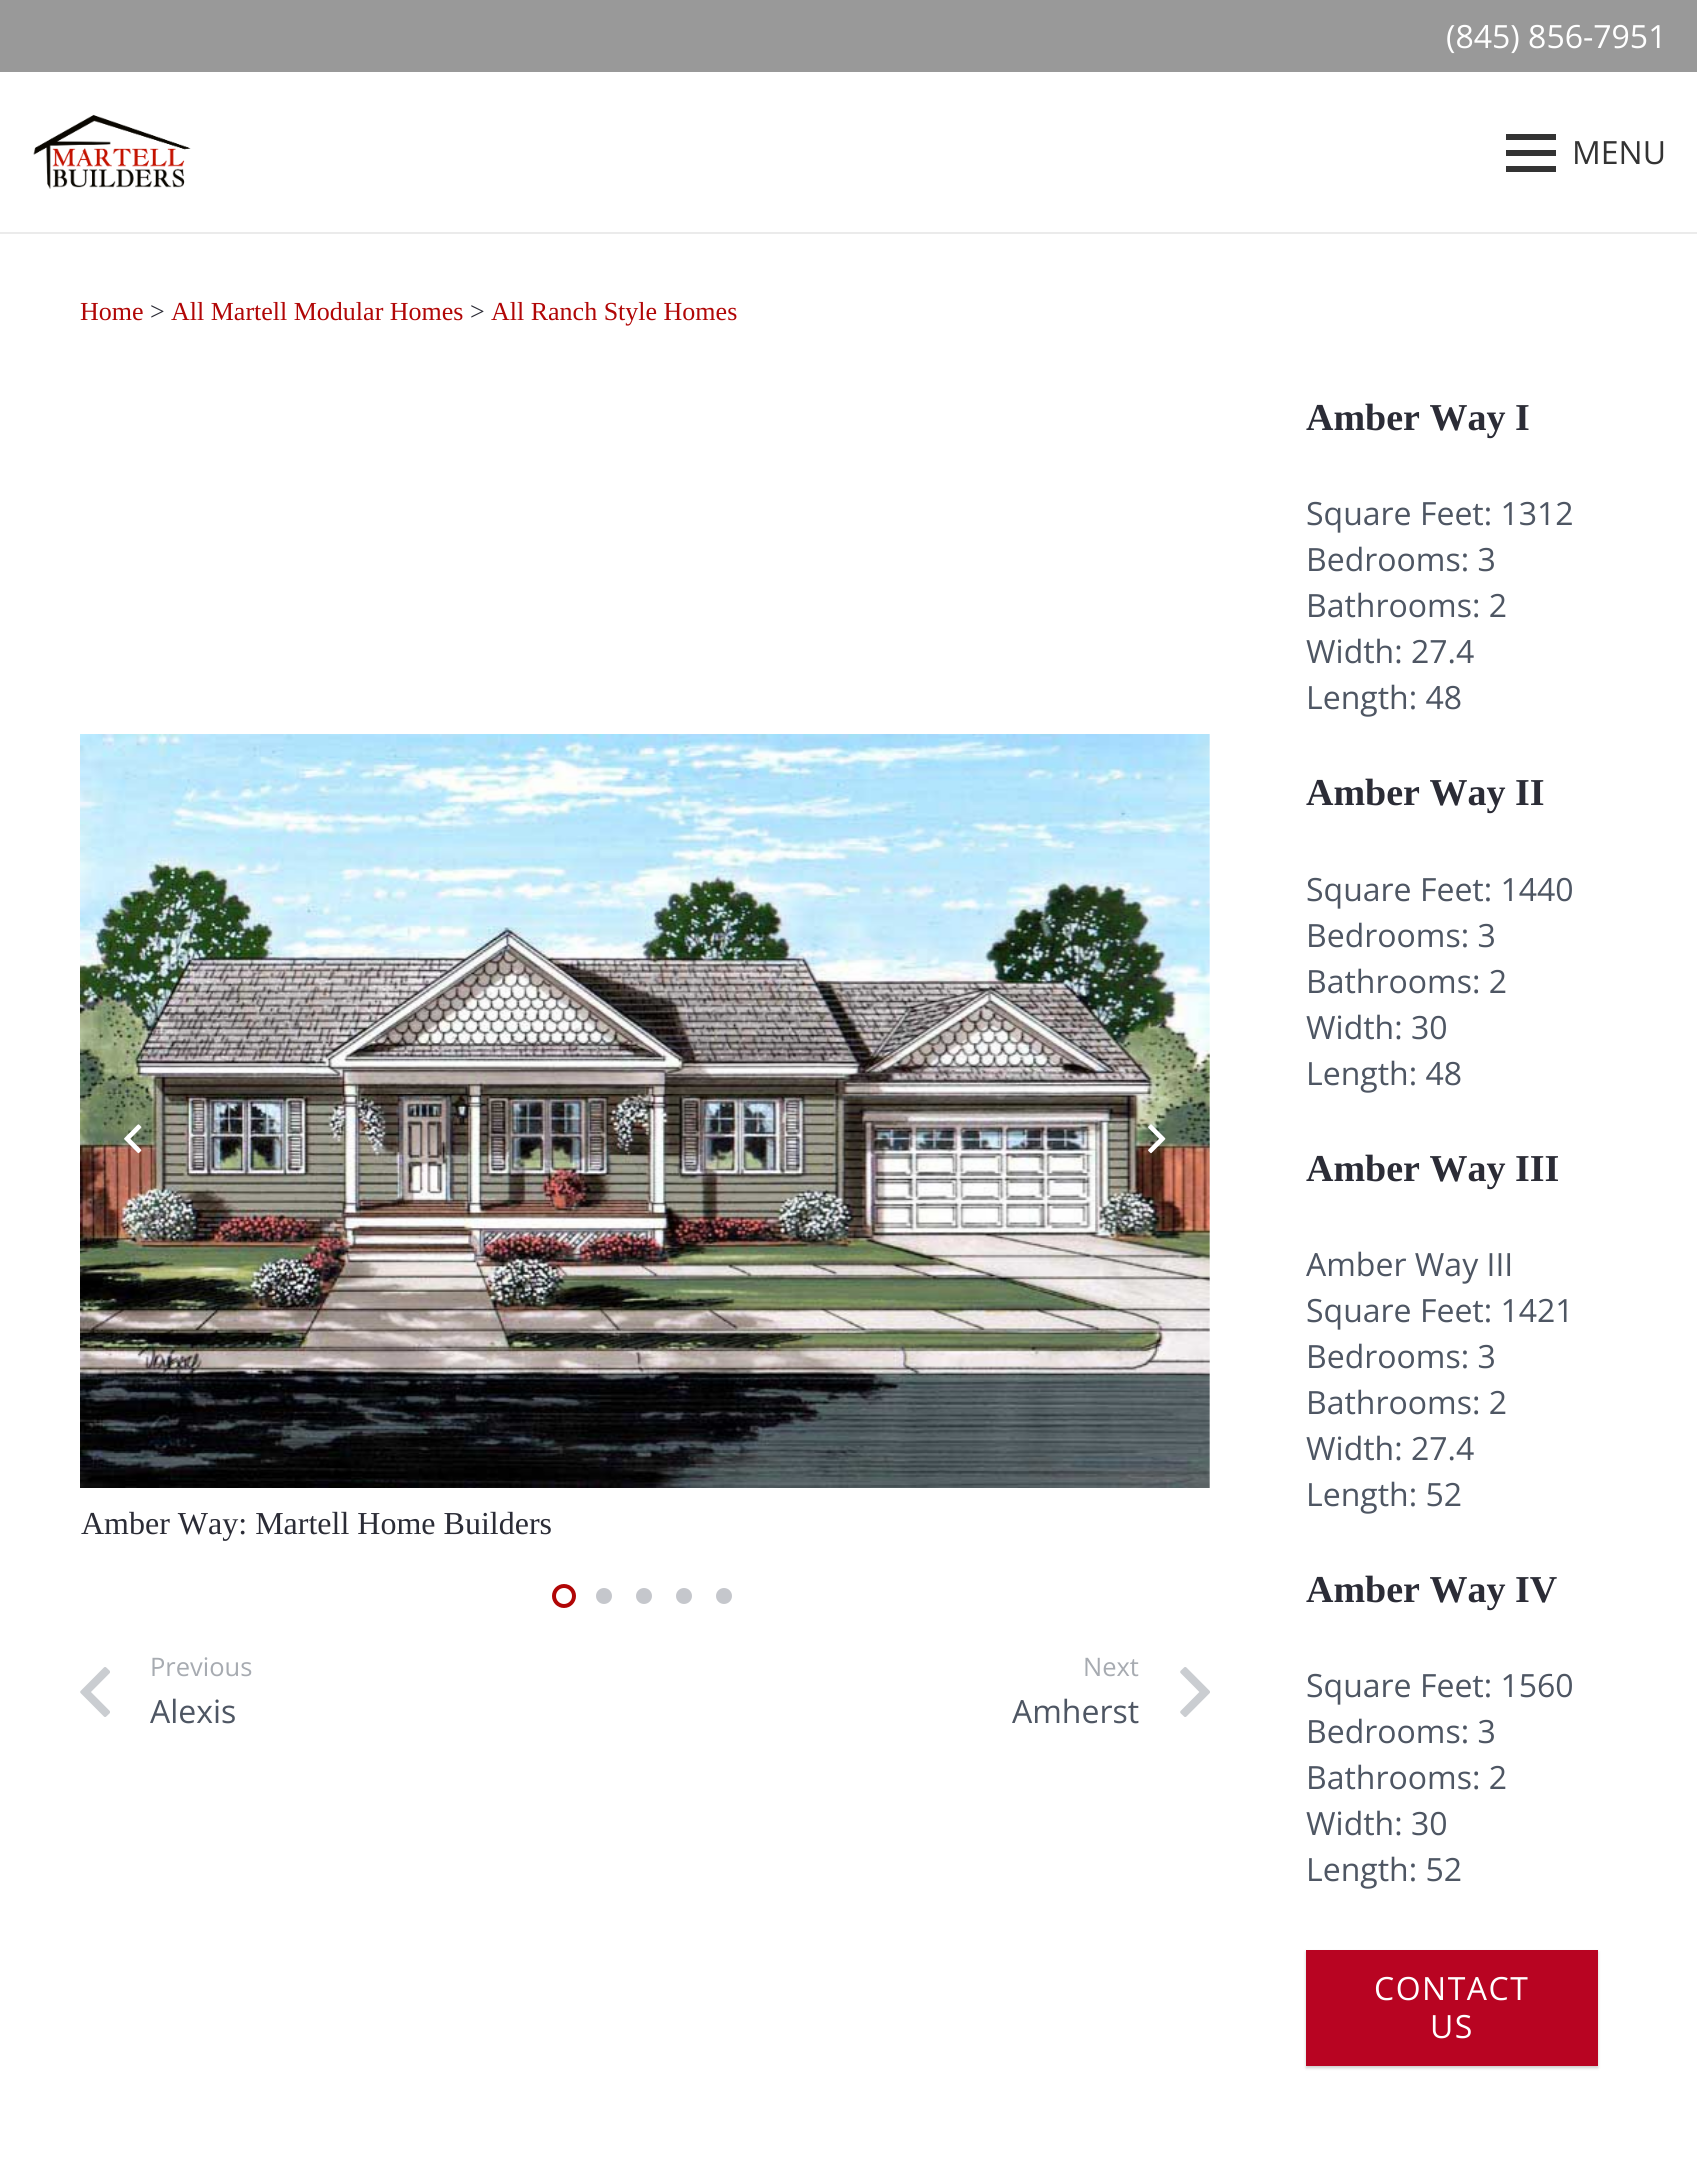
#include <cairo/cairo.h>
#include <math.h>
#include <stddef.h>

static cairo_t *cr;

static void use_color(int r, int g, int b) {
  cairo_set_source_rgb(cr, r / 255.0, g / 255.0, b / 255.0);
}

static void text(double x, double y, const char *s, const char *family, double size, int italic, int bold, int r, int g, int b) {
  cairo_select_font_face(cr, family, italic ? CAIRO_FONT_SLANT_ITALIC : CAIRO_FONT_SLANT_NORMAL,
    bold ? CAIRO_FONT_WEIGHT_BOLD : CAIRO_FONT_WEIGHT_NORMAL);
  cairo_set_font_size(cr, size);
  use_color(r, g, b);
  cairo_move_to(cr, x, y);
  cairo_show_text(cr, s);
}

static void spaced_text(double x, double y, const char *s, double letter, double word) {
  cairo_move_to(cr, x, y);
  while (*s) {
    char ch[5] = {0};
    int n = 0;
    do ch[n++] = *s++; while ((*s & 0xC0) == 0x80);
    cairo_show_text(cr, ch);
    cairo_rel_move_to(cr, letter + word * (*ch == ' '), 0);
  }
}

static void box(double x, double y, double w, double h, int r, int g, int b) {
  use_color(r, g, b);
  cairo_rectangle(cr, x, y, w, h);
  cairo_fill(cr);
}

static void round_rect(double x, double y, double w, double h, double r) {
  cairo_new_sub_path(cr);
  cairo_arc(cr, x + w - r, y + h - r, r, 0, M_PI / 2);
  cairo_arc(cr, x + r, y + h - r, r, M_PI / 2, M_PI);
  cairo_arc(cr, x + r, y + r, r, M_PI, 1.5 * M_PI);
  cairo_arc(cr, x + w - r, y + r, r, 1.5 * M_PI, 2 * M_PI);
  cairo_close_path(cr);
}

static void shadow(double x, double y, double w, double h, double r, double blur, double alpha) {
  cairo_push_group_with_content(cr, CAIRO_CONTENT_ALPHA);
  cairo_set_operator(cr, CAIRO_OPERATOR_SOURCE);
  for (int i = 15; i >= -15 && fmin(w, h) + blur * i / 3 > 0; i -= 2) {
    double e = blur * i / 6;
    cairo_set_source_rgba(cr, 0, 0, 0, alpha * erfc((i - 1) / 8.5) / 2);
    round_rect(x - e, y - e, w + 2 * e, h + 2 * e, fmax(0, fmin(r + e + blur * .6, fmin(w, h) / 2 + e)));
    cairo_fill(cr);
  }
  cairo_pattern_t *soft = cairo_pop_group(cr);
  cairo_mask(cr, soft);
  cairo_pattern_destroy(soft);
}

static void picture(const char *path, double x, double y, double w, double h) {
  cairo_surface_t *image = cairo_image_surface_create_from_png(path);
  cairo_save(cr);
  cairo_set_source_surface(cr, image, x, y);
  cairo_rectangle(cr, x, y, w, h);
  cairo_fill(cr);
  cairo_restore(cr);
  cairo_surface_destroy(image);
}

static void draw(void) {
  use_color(255, 255, 255);
  cairo_paint(cr);
  box(0, 0, 1697, 72, 153, 153, 153);
  box(0, 232, 1697, 2, 235, 235, 235);
  picture("img_01.png", 33, 114, 158, 75);
  box(1506, 150, 50, 6, 51, 51, 51);
  box(1506, 134, 50, 6, 51, 51, 51);
  box(1506, 166, 50, 6, 51, 51, 51);
  picture("img_04.png", 80, 734, 1130, 754);
  picture("img_02.png", 124, 1124, 18, 30);
  picture("img_03.png", 1148, 1124, 18, 30);
  cairo_arc(cr, 564, 1596, 10, 0, 2 * M_PI);
  use_color(177, 6, 6);
  cairo_set_line_width(cr, 4);
  cairo_stroke(cr);
  use_color(197, 199, 204);
  cairo_arc(cr, 604, 1596, 8, 0, 2 * M_PI);
  cairo_fill(cr);
  cairo_arc(cr, 644, 1596, 8, 0, 2 * M_PI);
  cairo_fill(cr);
  cairo_arc(cr, 684, 1596, 8, 0, 2 * M_PI);
  cairo_fill(cr);
  cairo_arc(cr, 724, 1596, 8, 0, 2 * M_PI);
  cairo_fill(cr);
  picture("img_05.png", 80, 1667, 30, 50);
  picture("img_06.png", 1180, 1667, 30, 50);
  use_color(0, 0, 0);
  shadow(1306, 1952, 292, 116, 0, 1.5, 0.2);
  box(1306, 1950, 292, 116, 184, 4, 34);
  text(1446, 48, "(845) 856-7951", "Open Sans", 32, 0, 0, 255, 255, 255);
  text(1572, 164, "MENU", "Open Sans", 32, 0, 0, 51, 51, 51);
  text(80, 320, "Home", "Liberation Serif", 26, 0, 0, 177, 6, 6);
  text(150, 320, ">", "Liberation Serif", 26, 0, 0, 43, 44, 54);
  text(171, 320, "All Martell Modular Homes", "Liberation Serif", 26, 0, 0, 177, 6, 6);
  text(470, 320, ">", "Liberation Serif", 26, 0, 0, 43, 44, 54);
  text(491, 320, "All Ranch Style Homes", "Liberation Serif", 26, 0, 0, 177, 6, 6);
  text(81, 1534, "Amber Way: Martell Home Builders", "Liberation Serif", 32, 0, 0, 43, 44, 54);
  text(150, 1676, "Previous", "Open Sans", 25.5, 0, 0, 167, 171, 177);
  text(150, 1723, "Alexis", "Open Sans", 32, 0, 0, 78, 86, 99);
  text(1083, 1676, "Next", "Open Sans", 25.5, 0, 0, 167, 171, 177);
  text(1012, 1723, "Amherst", "Open Sans", 32, 0, 0, 78, 86, 99);
  text(1306, 430, "Amber Way I", "Liberation Serif", 38, 0, 1, 43, 44, 54);
  text(1306, 525, "Square Feet: 1312", "Open Sans", 32, 0, 0, 78, 86, 99);
  text(1306, 571, "Bedrooms: 3", "Open Sans", 32, 0, 0, 78, 86, 99);
  text(1306, 617, "Bathrooms: 2", "Open Sans", 32, 0, 0, 78, 86, 99);
  text(1306, 663, "Width: 27.4", "Open Sans", 32, 0, 0, 78, 86, 99);
  text(1306, 709, "Length: 48", "Open Sans", 32, 0, 0, 78, 86, 99);
  text(1306, 805, "Amber Way II", "Liberation Serif", 38, 0, 1, 43, 44, 54);
  text(1306, 901, "Square Feet: 1440", "Open Sans", 32, 0, 0, 78, 86, 99);
  text(1306, 947, "Bedrooms: 3", "Open Sans", 32, 0, 0, 78, 86, 99);
  text(1306, 993, "Bathrooms: 2", "Open Sans", 32, 0, 0, 78, 86, 99);
  text(1306, 1039, "Width: 30", "Open Sans", 32, 0, 0, 78, 86, 99);
  text(1306, 1085, "Length: 48", "Open Sans", 32, 0, 0, 78, 86, 99);
  text(1306, 1181, "Amber Way III", "Liberation Serif", 38, 0, 1, 43, 44, 54);
  text(1306, 1276, "Amber Way III", "Open Sans", 32, 0, 0, 78, 86, 99);
  text(1306, 1322, "Square Feet: 1421", "Open Sans", 32, 0, 0, 78, 86, 99);
  text(1306, 1368, "Bedrooms: 3", "Open Sans", 32, 0, 0, 78, 86, 99);
  text(1306, 1414, "Bathrooms: 2", "Open Sans", 32, 0, 0, 78, 86, 99);
  text(1306, 1460, "Width: 27.4", "Open Sans", 32, 0, 0, 78, 86, 99);
  text(1306, 1506, "Length: 52", "Open Sans", 32, 0, 0, 78, 86, 99);
  text(1306, 1602, "Amber Way IV", "Liberation Serif", 38, 0, 1, 43, 44, 54);
  text(1306, 1697, "Square Feet: 1560", "Open Sans", 32, 0, 0, 78, 86, 99);
  text(1306, 1743, "Bedrooms: 3", "Open Sans", 32, 0, 0, 78, 86, 99);
  text(1306, 1789, "Bathrooms: 2", "Open Sans", 32, 0, 0, 78, 86, 99);
  text(1306, 1835, "Width: 30", "Open Sans", 32, 0, 0, 78, 86, 99);
  text(1306, 1881, "Length: 52", "Open Sans", 32, 0, 0, 78, 86, 99);
  use_color(255, 255, 255);
  spaced_text(1374, 2000, "CONTACT", 1.5, 0);
  spaced_text(1430, 2038, "US", 1.5, 0);
}

int main(void) {
  cairo_surface_t *surface = cairo_image_surface_create(CAIRO_FORMAT_RGB24, 1697, 2171);
  cr = cairo_create(surface);
  cairo_font_options_t *options = cairo_font_options_create();
  cairo_font_options_set_hint_metrics(options, CAIRO_HINT_METRICS_OFF);
  cairo_font_options_set_hint_style(options, CAIRO_HINT_STYLE_NONE);
  cairo_set_font_options(cr, options);
  cairo_set_miter_limit(cr, 4);
  draw();
  cairo_surface_write_to_png(surface, "out.png");
  cairo_font_options_destroy(options);
  cairo_destroy(cr);
  cairo_surface_destroy(surface);
  return 0;
}
